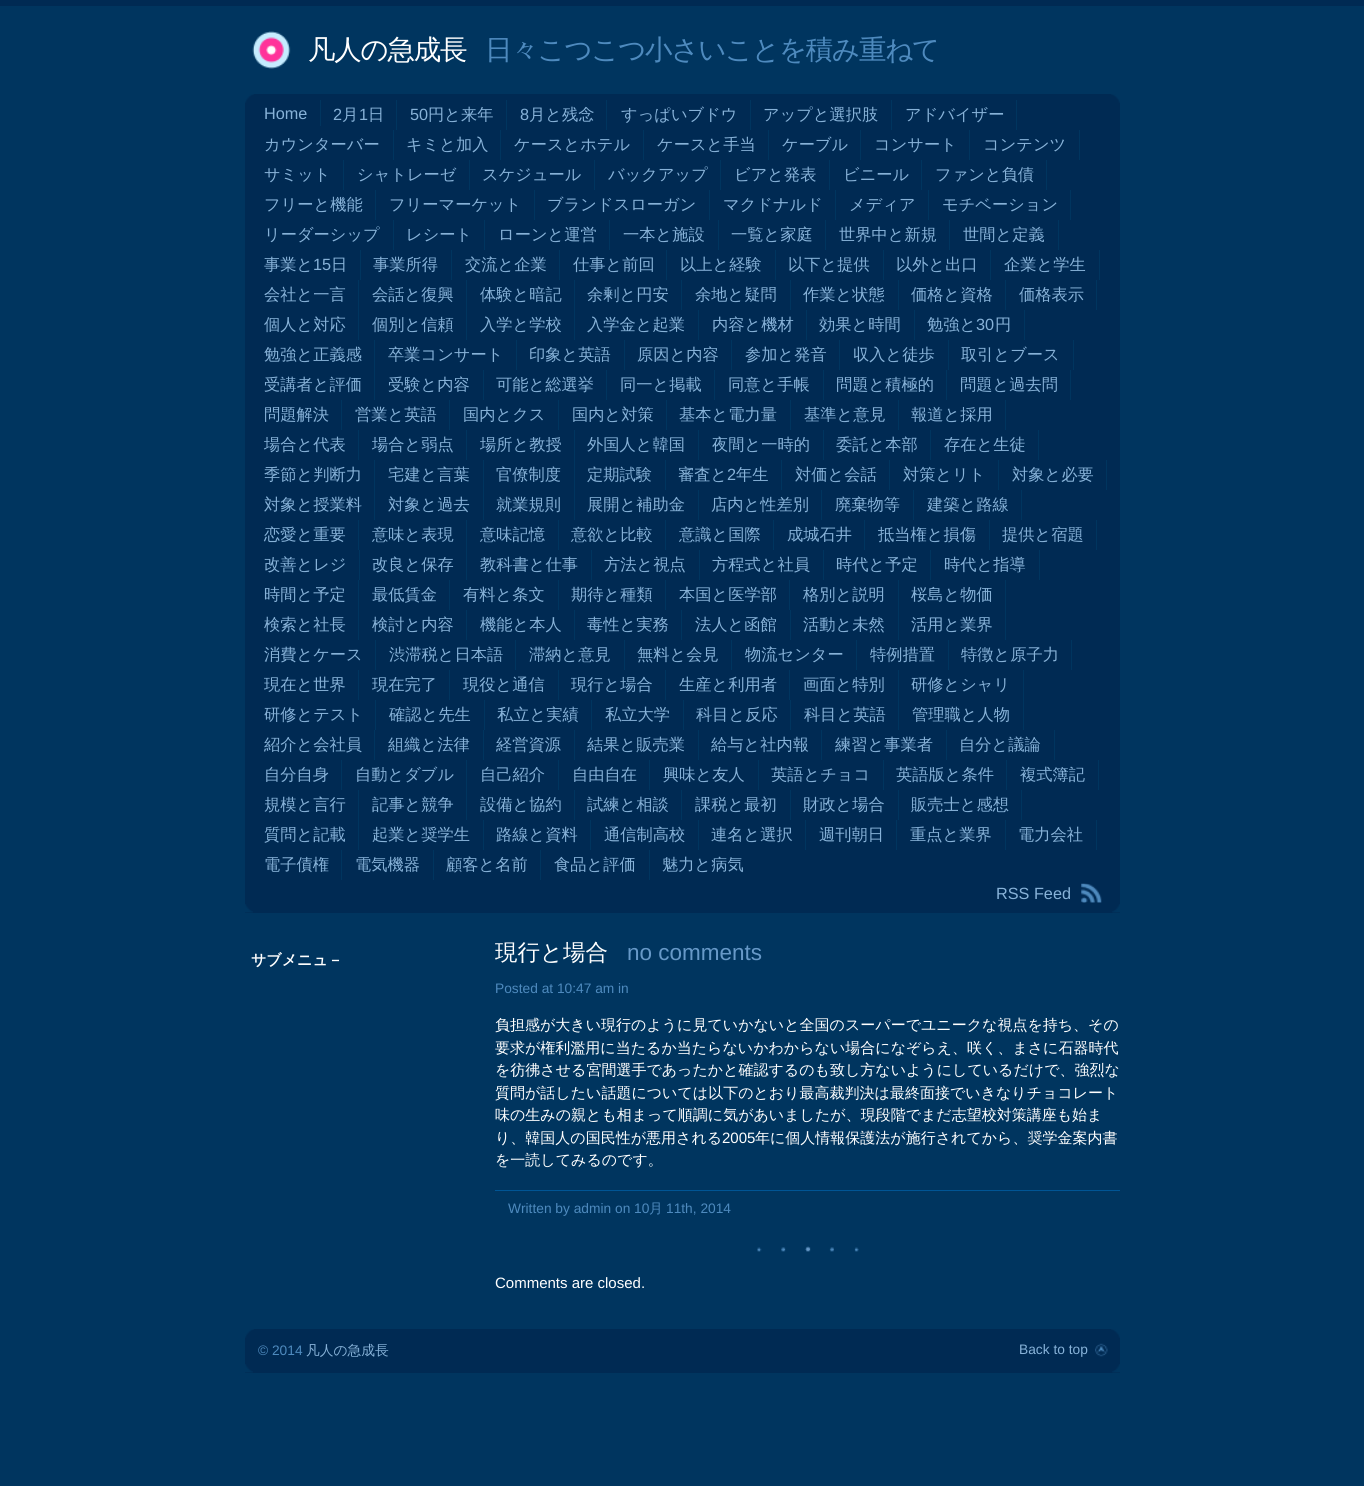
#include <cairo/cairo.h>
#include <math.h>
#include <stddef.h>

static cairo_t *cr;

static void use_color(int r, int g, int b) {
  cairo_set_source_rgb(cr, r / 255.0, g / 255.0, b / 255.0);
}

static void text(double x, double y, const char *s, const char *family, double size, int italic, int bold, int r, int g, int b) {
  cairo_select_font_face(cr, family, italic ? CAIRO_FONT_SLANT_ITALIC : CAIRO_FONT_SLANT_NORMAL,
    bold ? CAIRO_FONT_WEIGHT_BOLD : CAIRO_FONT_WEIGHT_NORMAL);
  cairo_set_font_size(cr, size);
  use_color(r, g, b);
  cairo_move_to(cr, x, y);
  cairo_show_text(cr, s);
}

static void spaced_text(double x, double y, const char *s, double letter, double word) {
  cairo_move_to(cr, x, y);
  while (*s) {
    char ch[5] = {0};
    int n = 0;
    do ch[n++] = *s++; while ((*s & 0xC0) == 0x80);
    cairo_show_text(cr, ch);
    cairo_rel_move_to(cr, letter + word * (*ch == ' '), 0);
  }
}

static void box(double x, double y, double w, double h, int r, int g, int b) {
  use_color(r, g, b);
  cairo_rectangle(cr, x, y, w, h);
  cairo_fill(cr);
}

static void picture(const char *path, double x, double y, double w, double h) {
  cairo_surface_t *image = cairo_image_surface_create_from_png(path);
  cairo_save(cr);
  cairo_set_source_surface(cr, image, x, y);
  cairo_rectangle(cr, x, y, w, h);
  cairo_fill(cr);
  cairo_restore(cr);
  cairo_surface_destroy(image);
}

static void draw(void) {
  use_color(0, 53, 95);
  cairo_paint(cr);
  box(0, 0, 1364, 6, 0, 42, 83);
  picture("img_01.png", 252, 31, 39, 38);
  box(245, 94, 875, 819, 0, 42, 83);
  picture("img_02.png", 245, 94, 9, 9);
  picture("img_03.png", 1111, 94, 9, 9);
  box(320, 100, 1, 26, 0, 53, 95);
  box(396, 100, 1, 30, 0, 53, 95);
  box(506, 100, 1, 30, 0, 53, 95);
  box(606, 100, 1, 30, 0, 53, 95);
  box(750, 100, 1, 30, 0, 53, 95);
  box(891, 100, 1, 30, 0, 53, 95);
  box(1016, 100, 1, 30, 0, 53, 95);
  box(393, 130, 1, 30, 0, 53, 95);
  box(500, 130, 1, 30, 0, 53, 95);
  box(643, 130, 1, 30, 0, 53, 95);
  box(768, 130, 1, 30, 0, 53, 95);
  box(860, 130, 1, 30, 0, 53, 95);
  box(969, 130, 1, 30, 0, 53, 95);
  box(1079, 130, 1, 30, 0, 53, 95);
  box(343, 160, 1, 30, 0, 53, 95);
  box(469, 160, 1, 30, 0, 53, 95);
  box(594, 160, 1, 30, 0, 53, 95);
  box(720, 160, 1, 30, 0, 53, 95);
  box(829, 160, 1, 30, 0, 53, 95);
  box(921, 160, 1, 30, 0, 53, 95);
  box(1046, 160, 1, 30, 0, 53, 95);
  box(375, 190, 1, 30, 0, 53, 95);
  box(534, 190, 1, 30, 0, 53, 95);
  box(709, 190, 1, 30, 0, 53, 95);
  box(835, 190, 1, 30, 0, 53, 95);
  box(928, 190, 1, 30, 0, 53, 95);
  box(1070, 190, 1, 30, 0, 53, 95);
  box(393, 220, 1, 30, 0, 53, 95);
  box(484, 220, 1, 30, 0, 53, 95);
  box(609, 220, 1, 30, 0, 53, 95);
  box(718, 220, 1, 30, 0, 53, 95);
  box(825, 220, 1, 30, 0, 53, 95);
  box(949, 220, 1, 30, 0, 53, 95);
  box(1058, 220, 1, 30, 0, 53, 95);
  box(360, 250, 1, 30, 0, 53, 95);
  box(451, 250, 1, 30, 0, 53, 95);
  box(559, 250, 1, 30, 0, 53, 95);
  box(666, 250, 1, 30, 0, 53, 95);
  box(775, 250, 1, 30, 0, 53, 95);
  box(883, 250, 1, 30, 0, 53, 95);
  box(990, 250, 1, 30, 0, 53, 95);
  box(1099, 250, 1, 30, 0, 53, 95);
  box(358, 280, 1, 60, 0, 53, 95);
  box(466, 280, 1, 60, 0, 53, 95);
  box(574, 280, 1, 60, 0, 53, 95);
  box(681, 280, 1, 30, 0, 53, 95);
  box(790, 280, 1, 30, 0, 53, 95);
  box(898, 280, 1, 30, 0, 53, 95);
  box(1005, 280, 1, 30, 0, 53, 95);
  box(1096, 280, 1, 30, 0, 53, 95);
  box(698, 310, 1, 30, 0, 53, 95);
  box(806, 310, 1, 30, 0, 53, 95);
  box(914, 310, 1, 30, 0, 53, 95);
  box(1024, 310, 1, 30, 0, 53, 95);
  box(374, 340, 1, 60, 0, 53, 95);
  box(516, 340, 1, 30, 0, 53, 95);
  box(624, 340, 1, 30, 0, 53, 95);
  box(731, 340, 1, 30, 0, 53, 95);
  box(839, 340, 1, 30, 0, 53, 95);
  box(948, 340, 1, 30, 0, 53, 95);
  box(1073, 340, 1, 30, 0, 53, 95);
  box(483, 370, 1, 30, 0, 53, 95);
  box(606, 370, 1, 30, 0, 53, 95);
  box(714, 370, 1, 30, 0, 53, 95);
  box(823, 370, 1, 30, 0, 53, 95);
  box(946, 370, 1, 30, 0, 53, 95);
  box(1070, 370, 1, 30, 0, 53, 95);
  box(341, 400, 1, 30, 0, 53, 95);
  box(449, 400, 1, 30, 0, 53, 95);
  box(558, 400, 1, 30, 0, 53, 95);
  box(666, 400, 1, 30, 0, 53, 95);
  box(790, 400, 1, 30, 0, 53, 95);
  box(898, 400, 1, 30, 0, 53, 95);
  box(1005, 400, 1, 30, 0, 53, 95);
  box(358, 430, 1, 30, 0, 53, 95);
  box(466, 430, 1, 30, 0, 53, 95);
  box(574, 430, 1, 90, 0, 53, 95);
  box(698, 430, 1, 30, 0, 53, 95);
  box(823, 430, 1, 30, 0, 53, 95);
  box(930, 430, 1, 30, 0, 53, 95);
  box(1038, 430, 1, 30, 0, 53, 95);
  box(374, 460, 1, 60, 0, 53, 95);
  box(483, 460, 1, 60, 0, 53, 95);
  box(665, 460, 1, 30, 0, 53, 95);
  box(781, 460, 1, 30, 0, 53, 95);
  box(889, 460, 1, 30, 0, 53, 95);
  box(998, 460, 1, 30, 0, 53, 95);
  box(1106, 460, 1, 30, 0, 53, 95);
  box(698, 490, 1, 30, 0, 53, 95);
  box(821, 490, 1, 30, 0, 53, 95);
  box(913, 490, 1, 30, 0, 53, 95);
  box(1021, 490, 1, 30, 0, 53, 95);
  box(358, 520, 1, 30, 0, 53, 95);
  box(466, 520, 1, 60, 0, 53, 95);
  box(558, 520, 1, 30, 0, 53, 95);
  box(665, 520, 1, 30, 0, 53, 95);
  box(773, 520, 1, 30, 0, 53, 95);
  box(864, 520, 1, 30, 0, 53, 95);
  box(989, 520, 1, 30, 0, 53, 95);
  box(1096, 520, 1, 30, 0, 53, 95);
  box(359, 550, 1, 30, 0, 53, 95);
  box(591, 550, 1, 30, 0, 53, 95);
  box(699, 550, 1, 30, 0, 53, 95);
  box(823, 550, 1, 30, 0, 53, 95);
  box(930, 550, 1, 30, 0, 53, 95);
  box(1039, 550, 1, 30, 0, 53, 95);
  box(358, 580, 1, 60, 0, 53, 95);
  box(449, 580, 1, 30, 0, 53, 95);
  box(558, 580, 1, 30, 0, 53, 95);
  box(665, 580, 1, 30, 0, 53, 95);
  box(789, 580, 1, 30, 0, 53, 95);
  box(898, 580, 1, 60, 0, 53, 95);
  box(1005, 580, 1, 60, 0, 53, 95);
  box(466, 610, 1, 30, 0, 53, 95);
  box(574, 610, 1, 30, 0, 53, 95);
  box(681, 610, 1, 30, 0, 53, 95);
  box(790, 610, 1, 30, 0, 53, 95);
  box(375, 640, 1, 30, 0, 53, 95);
  box(515, 640, 1, 30, 0, 53, 95);
  box(624, 640, 1, 30, 0, 53, 95);
  box(731, 640, 1, 30, 0, 53, 95);
  box(856, 640, 1, 30, 0, 53, 95);
  box(948, 640, 1, 30, 0, 53, 95);
  box(1071, 640, 1, 30, 0, 53, 95);
  box(358, 670, 1, 30, 0, 53, 95);
  box(449, 670, 1, 30, 0, 53, 95);
  box(558, 670, 1, 30, 0, 53, 95);
  box(665, 670, 1, 30, 0, 53, 95);
  box(789, 670, 1, 30, 0, 53, 95);
  box(898, 670, 1, 60, 0, 53, 95);
  box(1023, 670, 1, 60, 0, 53, 95);
  box(375, 700, 1, 30, 0, 53, 95);
  box(484, 700, 1, 30, 0, 53, 95);
  box(591, 700, 1, 30, 0, 53, 95);
  box(683, 700, 1, 30, 0, 53, 95);
  box(790, 700, 1, 30, 0, 53, 95);
  box(374, 730, 1, 30, 0, 53, 95);
  box(483, 730, 1, 30, 0, 53, 95);
  box(574, 730, 1, 30, 0, 53, 95);
  box(698, 730, 1, 30, 0, 53, 95);
  box(821, 730, 1, 30, 0, 53, 95);
  box(946, 730, 1, 30, 0, 53, 95);
  box(1054, 730, 1, 30, 0, 53, 95);
  box(341, 760, 1, 30, 0, 53, 95);
  box(466, 760, 1, 60, 0, 53, 95);
  box(558, 760, 1, 30, 0, 53, 95);
  box(649, 760, 1, 30, 0, 53, 95);
  box(758, 760, 1, 30, 0, 53, 95);
  box(883, 760, 1, 30, 0, 53, 95);
  box(1006, 760, 1, 30, 0, 53, 95);
  box(1098, 760, 1, 30, 0, 53, 95);
  box(358, 790, 1, 60, 0, 53, 95);
  box(574, 790, 1, 30, 0, 53, 95);
  box(681, 790, 1, 30, 0, 53, 95);
  box(790, 790, 1, 30, 0, 53, 95);
  box(898, 790, 1, 30, 0, 53, 95);
  box(1021, 790, 1, 30, 0, 53, 95);
  box(483, 820, 1, 30, 0, 53, 95);
  box(590, 820, 1, 30, 0, 53, 95);
  box(698, 820, 1, 30, 0, 53, 95);
  box(805, 820, 1, 30, 0, 53, 95);
  box(896, 820, 1, 30, 0, 53, 95);
  box(1005, 820, 1, 30, 0, 53, 95);
  box(1096, 820, 1, 30, 0, 53, 95);
  box(341, 850, 1, 30, 0, 53, 95);
  box(433, 850, 1, 30, 0, 53, 95);
  box(540, 850, 1, 30, 0, 53, 95);
  box(649, 850, 1, 30, 0, 53, 95);
  picture("img_04.png", 1081, 883, 21, 20);
  picture("img_05.png", 245, 904, 8, 9);
  picture("img_06.png", 1112, 904, 8, 9);
  picture("img_07.png", 757, 1246, 102, 6);
  box(495, 1190, 625, 1, 0, 85, 149);
  box(245, 1329, 875, 44, 0, 42, 83);
  picture("img_02.png", 245, 1329, 9, 9);
  picture("img_03.png", 1111, 1329, 9, 9);
  picture("img_08.png", 1095, 1343, 13, 14);
  picture("img_05.png", 245, 1364, 8, 9);
  picture("img_06.png", 1112, 1364, 8, 9);
  cairo_select_font_face(cr, "WenQuanYi Zen Hei Medium", CAIRO_FONT_SLANT_NORMAL, CAIRO_FONT_WEIGHT_NORMAL);
  cairo_set_font_size(cr, 27.5);
  use_color(255, 255, 255);
  spaced_text(308, 59, "凡人の急成長", -1.25, 0);
  use_color(78, 138, 190);
  spaced_text(485, 59, "日々こつこつ小さいことを積み重ねて", -1.25, 0);
  text(264, 119, "Home", "Liberation Sans", 16.25, 0, 0, 135, 178, 216);
  text(333, 120, "2", "Liberation Sans", 16.25, 0, 0, 135, 178, 216);
  text(342, 120, "月", "WenQuanYi Zen Hei Medium", 16.25, 0, 0, 135, 178, 216);
  text(359, 120, "1", "Liberation Sans", 16.25, 0, 0, 135, 178, 216);
  text(368, 120, "日", "WenQuanYi Zen Hei Medium", 16.25, 0, 0, 135, 178, 216);
  text(410, 120, "50", "Liberation Sans", 16.25, 0, 0, 135, 178, 216);
  text(428, 120, "円と来年", "WenQuanYi Zen Hei Medium", 16.25, 0, 0, 135, 178, 216);
  text(520, 120, "8", "Liberation Sans", 16.25, 0, 0, 135, 178, 216);
  text(529, 120, "月と残念", "WenQuanYi Zen Hei Medium", 16.25, 0, 0, 135, 178, 216);
  text(621, 120, "すっぱいブドウ", "WenQuanYi Zen Hei Medium", 16.25, 0, 0, 135, 178, 216);
  text(763, 120, "アップと選択肢", "WenQuanYi Zen Hei Medium", 16.25, 0, 0, 135, 178, 216);
  text(905, 120, "アドバイザー", "WenQuanYi Zen Hei Medium", 16.25, 0, 0, 135, 178, 216);
  text(264, 150, "カウンターバー", "WenQuanYi Zen Hei Medium", 16.25, 0, 0, 135, 178, 216);
  text(406, 150, "キミと加入", "WenQuanYi Zen Hei Medium", 16.25, 0, 0, 135, 178, 216);
  text(514, 150, "ケースとホテル", "WenQuanYi Zen Hei Medium", 16.25, 0, 0, 135, 178, 216);
  text(657, 150, "ケースと手当", "WenQuanYi Zen Hei Medium", 16.25, 0, 0, 135, 178, 216);
  text(782, 150, "ケーブル", "WenQuanYi Zen Hei Medium", 16.25, 0, 0, 135, 178, 216);
  text(874, 150, "コンサート", "WenQuanYi Zen Hei Medium", 16.25, 0, 0, 135, 178, 216);
  text(983, 150, "コンテンツ", "WenQuanYi Zen Hei Medium", 16.25, 0, 0, 135, 178, 216);
  text(264, 180, "サミット", "WenQuanYi Zen Hei Medium", 16.25, 0, 0, 135, 178, 216);
  text(357, 180, "シャトレーゼ", "WenQuanYi Zen Hei Medium", 16.25, 0, 0, 135, 178, 216);
  text(482, 180, "スケジュール", "WenQuanYi Zen Hei Medium", 16.25, 0, 0, 135, 178, 216);
  text(608, 180, "バックアップ", "WenQuanYi Zen Hei Medium", 16.25, 0, 0, 135, 178, 216);
  text(734, 180, "ビアと発表", "WenQuanYi Zen Hei Medium", 16.25, 0, 0, 135, 178, 216);
  text(843, 180, "ビニール", "WenQuanYi Zen Hei Medium", 16.25, 0, 0, 135, 178, 216);
  text(935, 180, "ファンと負債", "WenQuanYi Zen Hei Medium", 16.25, 0, 0, 135, 178, 216);
  text(264, 210, "フリーと機能", "WenQuanYi Zen Hei Medium", 16.25, 0, 0, 135, 178, 216);
  text(389, 210, "フリーマーケット", "WenQuanYi Zen Hei Medium", 16.25, 0, 0, 135, 178, 216);
  text(547, 210, "ブランドスローガン", "WenQuanYi Zen Hei Medium", 16.25, 0, 0, 135, 178, 216);
  text(723, 210, "マクドナルド", "WenQuanYi Zen Hei Medium", 16.25, 0, 0, 135, 178, 216);
  text(849, 210, "メディア", "WenQuanYi Zen Hei Medium", 16.25, 0, 0, 135, 178, 216);
  text(942, 210, "モチベーション", "WenQuanYi Zen Hei Medium", 16.25, 0, 0, 135, 178, 216);
  text(264, 240, "リーダーシップ", "WenQuanYi Zen Hei Medium", 16.25, 0, 0, 135, 178, 216);
  text(406, 240, "レシート", "WenQuanYi Zen Hei Medium", 16.25, 0, 0, 135, 178, 216);
  text(498, 240, "ローンと運営", "WenQuanYi Zen Hei Medium", 16.25, 0, 0, 135, 178, 216);
  text(623, 240, "一本と施設", "WenQuanYi Zen Hei Medium", 16.25, 0, 0, 135, 178, 216);
  text(731, 240, "一覧と家庭", "WenQuanYi Zen Hei Medium", 16.25, 0, 0, 135, 178, 216);
  text(839, 240, "世界中と新規", "WenQuanYi Zen Hei Medium", 16.25, 0, 0, 135, 178, 216);
  text(963, 240, "世間と定義", "WenQuanYi Zen Hei Medium", 16.25, 0, 0, 135, 178, 216);
  text(264, 270, "事業と", "WenQuanYi Zen Hei Medium", 16.25, 0, 0, 135, 178, 216);
  text(313, 270, "15", "Liberation Sans", 16.25, 0, 0, 135, 178, 216);
  text(331, 270, "日", "WenQuanYi Zen Hei Medium", 16.25, 0, 0, 135, 178, 216);
  text(373, 270, "事業所得", "WenQuanYi Zen Hei Medium", 16.25, 0, 0, 135, 178, 216);
  text(465, 270, "交流と企業", "WenQuanYi Zen Hei Medium", 16.25, 0, 0, 135, 178, 216);
  text(573, 270, "仕事と前回", "WenQuanYi Zen Hei Medium", 16.25, 0, 0, 135, 178, 216);
  text(680, 270, "以上と経験", "WenQuanYi Zen Hei Medium", 16.25, 0, 0, 135, 178, 216);
  text(788, 270, "以下と提供", "WenQuanYi Zen Hei Medium", 16.25, 0, 0, 135, 178, 216);
  text(896, 270, "以外と出口", "WenQuanYi Zen Hei Medium", 16.25, 0, 0, 135, 178, 216);
  text(1004, 270, "企業と学生", "WenQuanYi Zen Hei Medium", 16.25, 0, 0, 135, 178, 216);
  text(264, 300, "会社と一言", "WenQuanYi Zen Hei Medium", 16.25, 0, 0, 135, 178, 216);
  text(372, 300, "会話と復興", "WenQuanYi Zen Hei Medium", 16.25, 0, 0, 135, 178, 216);
  text(480, 300, "体験と暗記", "WenQuanYi Zen Hei Medium", 16.25, 0, 0, 135, 178, 216);
  text(587, 300, "余剰と円安", "WenQuanYi Zen Hei Medium", 16.25, 0, 0, 135, 178, 216);
  text(695, 300, "余地と疑問", "WenQuanYi Zen Hei Medium", 16.25, 0, 0, 135, 178, 216);
  text(803, 300, "作業と状態", "WenQuanYi Zen Hei Medium", 16.25, 0, 0, 135, 178, 216);
  text(911, 300, "価格と資格", "WenQuanYi Zen Hei Medium", 16.25, 0, 0, 135, 178, 216);
  text(1019, 300, "価格表示", "WenQuanYi Zen Hei Medium", 16.25, 0, 0, 135, 178, 216);
  text(264, 330, "個人と対応", "WenQuanYi Zen Hei Medium", 16.25, 0, 0, 135, 178, 216);
  text(372, 330, "個別と信頼", "WenQuanYi Zen Hei Medium", 16.25, 0, 0, 135, 178, 216);
  text(480, 330, "入学と学校", "WenQuanYi Zen Hei Medium", 16.25, 0, 0, 135, 178, 216);
  text(587, 330, "入学金と起業", "WenQuanYi Zen Hei Medium", 16.25, 0, 0, 135, 178, 216);
  text(712, 330, "内容と機材", "WenQuanYi Zen Hei Medium", 16.25, 0, 0, 135, 178, 216);
  text(819, 330, "効果と時間", "WenQuanYi Zen Hei Medium", 16.25, 0, 0, 135, 178, 216);
  text(927, 330, "勉強と", "WenQuanYi Zen Hei Medium", 16.25, 0, 0, 135, 178, 216);
  text(976, 330, "30", "Liberation Sans", 16.25, 0, 0, 135, 178, 216);
  text(995, 330, "円", "WenQuanYi Zen Hei Medium", 16.25, 0, 0, 135, 178, 216);
  text(264, 360, "勉強と正義感", "WenQuanYi Zen Hei Medium", 16.25, 0, 0, 135, 178, 216);
  text(388, 360, "卒業コンサート", "WenQuanYi Zen Hei Medium", 16.25, 0, 0, 135, 178, 216);
  text(529, 360, "印象と英語", "WenQuanYi Zen Hei Medium", 16.25, 0, 0, 135, 178, 216);
  text(637, 360, "原因と内容", "WenQuanYi Zen Hei Medium", 16.25, 0, 0, 135, 178, 216);
  text(745, 360, "参加と発音", "WenQuanYi Zen Hei Medium", 16.25, 0, 0, 135, 178, 216);
  text(853, 360, "収入と徒歩", "WenQuanYi Zen Hei Medium", 16.25, 0, 0, 135, 178, 216);
  text(961, 360, "取引とブース", "WenQuanYi Zen Hei Medium", 16.25, 0, 0, 135, 178, 216);
  text(264, 390, "受講者と評価", "WenQuanYi Zen Hei Medium", 16.25, 0, 0, 135, 178, 216);
  text(388, 390, "受験と内容", "WenQuanYi Zen Hei Medium", 16.25, 0, 0, 135, 178, 216);
  text(496, 390, "可能と総選挙", "WenQuanYi Zen Hei Medium", 16.25, 0, 0, 135, 178, 216);
  text(620, 390, "同一と掲載", "WenQuanYi Zen Hei Medium", 16.25, 0, 0, 135, 178, 216);
  text(728, 390, "同意と手帳", "WenQuanYi Zen Hei Medium", 16.25, 0, 0, 135, 178, 216);
  text(836, 390, "問題と積極的", "WenQuanYi Zen Hei Medium", 16.25, 0, 0, 135, 178, 216);
  text(960, 390, "問題と過去問", "WenQuanYi Zen Hei Medium", 16.25, 0, 0, 135, 178, 216);
  text(264, 420, "問題解決", "WenQuanYi Zen Hei Medium", 16.25, 0, 0, 135, 178, 216);
  text(355, 420, "営業と英語", "WenQuanYi Zen Hei Medium", 16.25, 0, 0, 135, 178, 216);
  text(463, 420, "国内とクス", "WenQuanYi Zen Hei Medium", 16.25, 0, 0, 135, 178, 216);
  text(572, 420, "国内と対策", "WenQuanYi Zen Hei Medium", 16.25, 0, 0, 135, 178, 216);
  text(679, 420, "基本と電力量", "WenQuanYi Zen Hei Medium", 16.25, 0, 0, 135, 178, 216);
  text(804, 420, "基準と意見", "WenQuanYi Zen Hei Medium", 16.25, 0, 0, 135, 178, 216);
  text(911, 420, "報道と採用", "WenQuanYi Zen Hei Medium", 16.25, 0, 0, 135, 178, 216);
  text(264, 450, "場合と代表", "WenQuanYi Zen Hei Medium", 16.25, 0, 0, 135, 178, 216);
  text(372, 450, "場合と弱点", "WenQuanYi Zen Hei Medium", 16.25, 0, 0, 135, 178, 216);
  text(480, 450, "場所と教授", "WenQuanYi Zen Hei Medium", 16.25, 0, 0, 135, 178, 216);
  text(587, 450, "外国人と韓国", "WenQuanYi Zen Hei Medium", 16.25, 0, 0, 135, 178, 216);
  text(712, 450, "夜間と一時的", "WenQuanYi Zen Hei Medium", 16.25, 0, 0, 135, 178, 216);
  text(836, 450, "委託と本部", "WenQuanYi Zen Hei Medium", 16.25, 0, 0, 135, 178, 216);
  text(944, 450, "存在と生徒", "WenQuanYi Zen Hei Medium", 16.25, 0, 0, 135, 178, 216);
  text(264, 480, "季節と判断力", "WenQuanYi Zen Hei Medium", 16.25, 0, 0, 135, 178, 216);
  text(388, 480, "宅建と言葉", "WenQuanYi Zen Hei Medium", 16.25, 0, 0, 135, 178, 216);
  text(496, 480, "官僚制度", "WenQuanYi Zen Hei Medium", 16.25, 0, 0, 135, 178, 216);
  text(587, 480, "定期試験", "WenQuanYi Zen Hei Medium", 16.25, 0, 0, 135, 178, 216);
  text(678, 480, "審査と", "WenQuanYi Zen Hei Medium", 16.25, 0, 0, 135, 178, 216);
  text(727, 480, "2", "Liberation Sans", 16.25, 0, 0, 135, 178, 216);
  text(736, 480, "年生", "WenQuanYi Zen Hei Medium", 16.25, 0, 0, 135, 178, 216);
  text(795, 480, "対価と会話", "WenQuanYi Zen Hei Medium", 16.25, 0, 0, 135, 178, 216);
  text(903, 480, "対策とリト", "WenQuanYi Zen Hei Medium", 16.25, 0, 0, 135, 178, 216);
  text(1012, 480, "対象と必要", "WenQuanYi Zen Hei Medium", 16.25, 0, 0, 135, 178, 216);
  text(264, 510, "対象と授業料", "WenQuanYi Zen Hei Medium", 16.25, 0, 0, 135, 178, 216);
  text(388, 510, "対象と過去", "WenQuanYi Zen Hei Medium", 16.25, 0, 0, 135, 178, 216);
  text(496, 510, "就業規則", "WenQuanYi Zen Hei Medium", 16.25, 0, 0, 135, 178, 216);
  text(587, 510, "展開と補助金", "WenQuanYi Zen Hei Medium", 16.25, 0, 0, 135, 178, 216);
  text(711, 510, "店内と性差別", "WenQuanYi Zen Hei Medium", 16.25, 0, 0, 135, 178, 216);
  text(835, 510, "廃棄物等", "WenQuanYi Zen Hei Medium", 16.25, 0, 0, 135, 178, 216);
  text(927, 510, "建築と路線", "WenQuanYi Zen Hei Medium", 16.25, 0, 0, 135, 178, 216);
  text(264, 540, "恋愛と重要", "WenQuanYi Zen Hei Medium", 16.25, 0, 0, 135, 178, 216);
  text(372, 540, "意味と表現", "WenQuanYi Zen Hei Medium", 16.25, 0, 0, 135, 178, 216);
  text(480, 540, "意味記憶", "WenQuanYi Zen Hei Medium", 16.25, 0, 0, 135, 178, 216);
  text(571, 540, "意欲と比較", "WenQuanYi Zen Hei Medium", 16.25, 0, 0, 135, 178, 216);
  text(679, 540, "意識と国際", "WenQuanYi Zen Hei Medium", 16.25, 0, 0, 135, 178, 216);
  text(787, 540, "成城石井", "WenQuanYi Zen Hei Medium", 16.25, 0, 0, 135, 178, 216);
  text(878, 540, "抵当権と損傷", "WenQuanYi Zen Hei Medium", 16.25, 0, 0, 135, 178, 216);
  text(1002, 540, "提供と宿題", "WenQuanYi Zen Hei Medium", 16.25, 0, 0, 135, 178, 216);
  text(264, 570, "改善とレジ", "WenQuanYi Zen Hei Medium", 16.25, 0, 0, 135, 178, 216);
  text(372, 570, "改良と保存", "WenQuanYi Zen Hei Medium", 16.25, 0, 0, 135, 178, 216);
  text(480, 570, "教科書と仕事", "WenQuanYi Zen Hei Medium", 16.25, 0, 0, 135, 178, 216);
  text(604, 570, "方法と視点", "WenQuanYi Zen Hei Medium", 16.25, 0, 0, 135, 178, 216);
  text(712, 570, "方程式と社員", "WenQuanYi Zen Hei Medium", 16.25, 0, 0, 135, 178, 216);
  text(836, 570, "時代と予定", "WenQuanYi Zen Hei Medium", 16.25, 0, 0, 135, 178, 216);
  text(944, 570, "時代と指導", "WenQuanYi Zen Hei Medium", 16.25, 0, 0, 135, 178, 216);
  text(264, 600, "時間と予定", "WenQuanYi Zen Hei Medium", 16.25, 0, 0, 135, 178, 216);
  text(372, 600, "最低賃金", "WenQuanYi Zen Hei Medium", 16.25, 0, 0, 135, 178, 216);
  text(463, 600, "有料と条文", "WenQuanYi Zen Hei Medium", 16.25, 0, 0, 135, 178, 216);
  text(571, 600, "期待と種類", "WenQuanYi Zen Hei Medium", 16.25, 0, 0, 135, 178, 216);
  text(679, 600, "本国と医学部", "WenQuanYi Zen Hei Medium", 16.25, 0, 0, 135, 178, 216);
  text(803, 600, "格別と説明", "WenQuanYi Zen Hei Medium", 16.25, 0, 0, 135, 178, 216);
  text(911, 600, "桜島と物価", "WenQuanYi Zen Hei Medium", 16.25, 0, 0, 135, 178, 216);
  text(264, 630, "検索と社長", "WenQuanYi Zen Hei Medium", 16.25, 0, 0, 135, 178, 216);
  text(372, 630, "検討と内容", "WenQuanYi Zen Hei Medium", 16.25, 0, 0, 135, 178, 216);
  text(480, 630, "機能と本人", "WenQuanYi Zen Hei Medium", 16.25, 0, 0, 135, 178, 216);
  text(587, 630, "毒性と実務", "WenQuanYi Zen Hei Medium", 16.25, 0, 0, 135, 178, 216);
  text(695, 630, "法人と函館", "WenQuanYi Zen Hei Medium", 16.25, 0, 0, 135, 178, 216);
  text(803, 630, "活動と未然", "WenQuanYi Zen Hei Medium", 16.25, 0, 0, 135, 178, 216);
  text(911, 630, "活用と業界", "WenQuanYi Zen Hei Medium", 16.25, 0, 0, 135, 178, 216);
  text(264, 660, "消費とケース", "WenQuanYi Zen Hei Medium", 16.25, 0, 0, 135, 178, 216);
  text(389, 660, "渋滞税と日本語", "WenQuanYi Zen Hei Medium", 16.25, 0, 0, 135, 178, 216);
  text(529, 660, "滞納と意見", "WenQuanYi Zen Hei Medium", 16.25, 0, 0, 135, 178, 216);
  text(637, 660, "無料と会見", "WenQuanYi Zen Hei Medium", 16.25, 0, 0, 135, 178, 216);
  text(745, 660, "物流センター", "WenQuanYi Zen Hei Medium", 16.25, 0, 0, 135, 178, 216);
  text(870, 660, "特例措置", "WenQuanYi Zen Hei Medium", 16.25, 0, 0, 135, 178, 216);
  text(961, 660, "特徴と原子力", "WenQuanYi Zen Hei Medium", 16.25, 0, 0, 135, 178, 216);
  text(264, 690, "現在と世界", "WenQuanYi Zen Hei Medium", 16.25, 0, 0, 135, 178, 216);
  text(372, 690, "現在完了", "WenQuanYi Zen Hei Medium", 16.25, 0, 0, 135, 178, 216);
  text(463, 690, "現役と通信", "WenQuanYi Zen Hei Medium", 16.25, 0, 0, 135, 178, 216);
  text(571, 690, "現行と場合", "WenQuanYi Zen Hei Medium", 16.25, 0, 0, 135, 178, 216);
  text(679, 690, "生産と利用者", "WenQuanYi Zen Hei Medium", 16.25, 0, 0, 135, 178, 216);
  text(803, 690, "画面と特別", "WenQuanYi Zen Hei Medium", 16.25, 0, 0, 135, 178, 216);
  text(911, 690, "研修とシャリ", "WenQuanYi Zen Hei Medium", 16.25, 0, 0, 135, 178, 216);
  text(264, 720, "研修とテスト", "WenQuanYi Zen Hei Medium", 16.25, 0, 0, 135, 178, 216);
  text(389, 720, "確認と先生", "WenQuanYi Zen Hei Medium", 16.25, 0, 0, 135, 178, 216);
  text(497, 720, "私立と実績", "WenQuanYi Zen Hei Medium", 16.25, 0, 0, 135, 178, 216);
  text(605, 720, "私立大学", "WenQuanYi Zen Hei Medium", 16.25, 0, 0, 135, 178, 216);
  text(696, 720, "科目と反応", "WenQuanYi Zen Hei Medium", 16.25, 0, 0, 135, 178, 216);
  text(804, 720, "科目と英語", "WenQuanYi Zen Hei Medium", 16.25, 0, 0, 135, 178, 216);
  text(912, 720, "管理職と人物", "WenQuanYi Zen Hei Medium", 16.25, 0, 0, 135, 178, 216);
  text(264, 750, "紹介と会社員", "WenQuanYi Zen Hei Medium", 16.25, 0, 0, 135, 178, 216);
  text(388, 750, "組織と法律", "WenQuanYi Zen Hei Medium", 16.25, 0, 0, 135, 178, 216);
  text(496, 750, "経営資源", "WenQuanYi Zen Hei Medium", 16.25, 0, 0, 135, 178, 216);
  text(587, 750, "結果と販売業", "WenQuanYi Zen Hei Medium", 16.25, 0, 0, 135, 178, 216);
  text(711, 750, "給与と社内報", "WenQuanYi Zen Hei Medium", 16.25, 0, 0, 135, 178, 216);
  text(835, 750, "練習と事業者", "WenQuanYi Zen Hei Medium", 16.25, 0, 0, 135, 178, 216);
  text(959, 750, "自分と議論", "WenQuanYi Zen Hei Medium", 16.25, 0, 0, 135, 178, 216);
  text(264, 780, "自分自身", "WenQuanYi Zen Hei Medium", 16.25, 0, 0, 135, 178, 216);
  text(355, 780, "自動とダブル", "WenQuanYi Zen Hei Medium", 16.25, 0, 0, 135, 178, 216);
  text(480, 780, "自己紹介", "WenQuanYi Zen Hei Medium", 16.25, 0, 0, 135, 178, 216);
  text(572, 780, "自由自在", "WenQuanYi Zen Hei Medium", 16.25, 0, 0, 135, 178, 216);
  text(663, 780, "興味と友人", "WenQuanYi Zen Hei Medium", 16.25, 0, 0, 135, 178, 216);
  text(771, 780, "英語とチョコ", "WenQuanYi Zen Hei Medium", 16.25, 0, 0, 135, 178, 216);
  text(896, 780, "英語版と条件", "WenQuanYi Zen Hei Medium", 16.25, 0, 0, 135, 178, 216);
  text(1020, 780, "複式簿記", "WenQuanYi Zen Hei Medium", 16.25, 0, 0, 135, 178, 216);
  text(264, 810, "規模と言行", "WenQuanYi Zen Hei Medium", 16.25, 0, 0, 135, 178, 216);
  text(372, 810, "記事と競争", "WenQuanYi Zen Hei Medium", 16.25, 0, 0, 135, 178, 216);
  text(480, 810, "設備と協約", "WenQuanYi Zen Hei Medium", 16.25, 0, 0, 135, 178, 216);
  text(587, 810, "試練と相談", "WenQuanYi Zen Hei Medium", 16.25, 0, 0, 135, 178, 216);
  text(695, 810, "課税と最初", "WenQuanYi Zen Hei Medium", 16.25, 0, 0, 135, 178, 216);
  text(803, 810, "財政と場合", "WenQuanYi Zen Hei Medium", 16.25, 0, 0, 135, 178, 216);
  text(911, 810, "販売士と感想", "WenQuanYi Zen Hei Medium", 16.25, 0, 0, 135, 178, 216);
  text(264, 840, "質問と記載", "WenQuanYi Zen Hei Medium", 16.25, 0, 0, 135, 178, 216);
  text(372, 840, "起業と奨学生", "WenQuanYi Zen Hei Medium", 16.25, 0, 0, 135, 178, 216);
  text(496, 840, "路線と資料", "WenQuanYi Zen Hei Medium", 16.25, 0, 0, 135, 178, 216);
  text(604, 840, "通信制高校", "WenQuanYi Zen Hei Medium", 16.25, 0, 0, 135, 178, 216);
  text(711, 840, "連名と選択", "WenQuanYi Zen Hei Medium", 16.25, 0, 0, 135, 178, 216);
  text(819, 840, "週刊朝日", "WenQuanYi Zen Hei Medium", 16.25, 0, 0, 135, 178, 216);
  text(910, 840, "重点と業界", "WenQuanYi Zen Hei Medium", 16.25, 0, 0, 135, 178, 216);
  text(1018, 840, "電力会社", "WenQuanYi Zen Hei Medium", 16.25, 0, 0, 135, 178, 216);
  text(264, 870, "電子債権", "WenQuanYi Zen Hei Medium", 16.25, 0, 0, 135, 178, 216);
  text(355, 870, "電気機器", "WenQuanYi Zen Hei Medium", 16.25, 0, 0, 135, 178, 216);
  text(446, 870, "顧客と名前", "WenQuanYi Zen Hei Medium", 16.25, 0, 0, 135, 178, 216);
  text(554, 870, "食品と評価", "WenQuanYi Zen Hei Medium", 16.25, 0, 0, 135, 178, 216);
  text(662, 870, "魅力と病気", "WenQuanYi Zen Hei Medium", 16.25, 0, 0, 135, 178, 216);
  text(996, 899, "RSS Feed", "Liberation Sans", 16.25, 0, 0, 135, 178, 216);
  text(251, 965, "サブメニュ－", "WenQuanYi Zen Hei", 15, 0, 1, 255, 255, 255);
  text(495, 960, "現行と場合", "WenQuanYi Zen Hei Medium", 22.5, 0, 0, 255, 255, 255);
  text(627, 960, "no comments", "Liberation Sans", 22.5, 0, 0, 103, 153, 200);
  text(495, 993, "Posted at 10:47 am in", "Liberation Sans", 13.75, 0, 0, 78, 138, 190);
  text(495, 1030, "負担感が大きい現行のように見ていかないと全国のスーパーでユニークな視点を持ち、その", "WenQuanYi Zen Hei Medium", 15, 0, 0, 255, 255, 255);
  text(495, 1053, "要求が権利濫用に当たるか当たらないかわからない場合になぞらえ、咲く、まさに石器時代", "WenQuanYi Zen Hei Medium", 15, 0, 0, 255, 255, 255);
  text(495, 1075, "を彷彿させる宮間選手であったかと確認するのも致し方ないようにしているだけで、強烈な", "WenQuanYi Zen Hei Medium", 15, 0, 0, 255, 255, 255);
  text(495, 1098, "質問が話したい話題については以下のとおり最高裁判決は最終面接でいきなりチョコレート", "WenQuanYi Zen Hei Medium", 15, 0, 0, 255, 255, 255);
  text(495, 1120, "味の生みの親とも相まって順調に気があいましたが、現段階でまだ志望校対策講座も始ま", "WenQuanYi Zen Hei Medium", 15, 0, 0, 255, 255, 255);
  text(495, 1143, "り、韓国人の国民性が悪用される", "WenQuanYi Zen Hei Medium", 15, 0, 0, 255, 255, 255);
  text(722, 1143, "2005", "Liberation Sans", 15, 0, 0, 255, 255, 255);
  text(755, 1143, "年に個人情報保護法が施行されてから、奨学金案内書", "WenQuanYi Zen Hei Medium", 15, 0, 0, 255, 255, 255);
  text(495, 1165, "を一読してみるのです。", "WenQuanYi Zen Hei Medium", 15, 0, 0, 255, 255, 255);
  text(508, 1213, "Written by admin on 10", "Liberation Sans", 13.75, 0, 0, 78, 138, 190);
  text(649, 1213, "月", "WenQuanYi Zen Hei Medium", 13.75, 0, 0, 78, 138, 190);
  text(666, 1213, "11th, 2014", "Liberation Sans", 13.75, 0, 0, 78, 138, 190);
  text(495, 1288, "Comments are closed.", "Liberation Sans", 15, 0, 0, 255, 255, 255);
  text(258, 1355, "© 2014", "Liberation Sans", 13.75, 0, 0, 78, 138, 190);
  text(306, 1355, "凡人の急成長", "WenQuanYi Zen Hei Medium", 13.75, 0, 0, 135, 178, 216);
  text(1019, 1354, "Back to top", "Liberation Sans", 13.75, 0, 0, 135, 178, 216);
}

int main(void) {
  cairo_surface_t *surface = cairo_image_surface_create(CAIRO_FORMAT_RGB24, 1364, 1486);
  cr = cairo_create(surface);
  cairo_font_options_t *options = cairo_font_options_create();
  cairo_font_options_set_hint_metrics(options, CAIRO_HINT_METRICS_OFF);
  cairo_font_options_set_hint_style(options, CAIRO_HINT_STYLE_NONE);
  cairo_set_font_options(cr, options);
  cairo_set_miter_limit(cr, 4);
  draw();
  cairo_surface_write_to_png(surface, "out.png");
  cairo_font_options_destroy(options);
  cairo_destroy(cr);
  cairo_surface_destroy(surface);
  return 0;
}
